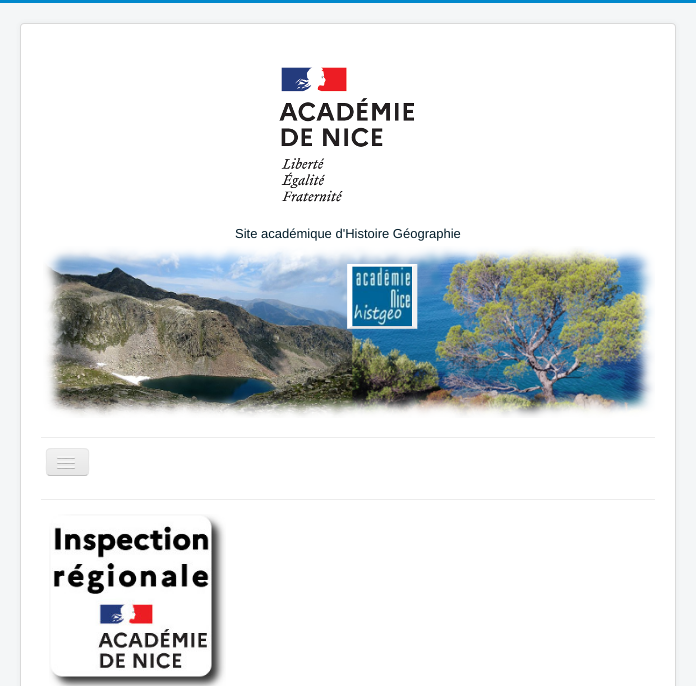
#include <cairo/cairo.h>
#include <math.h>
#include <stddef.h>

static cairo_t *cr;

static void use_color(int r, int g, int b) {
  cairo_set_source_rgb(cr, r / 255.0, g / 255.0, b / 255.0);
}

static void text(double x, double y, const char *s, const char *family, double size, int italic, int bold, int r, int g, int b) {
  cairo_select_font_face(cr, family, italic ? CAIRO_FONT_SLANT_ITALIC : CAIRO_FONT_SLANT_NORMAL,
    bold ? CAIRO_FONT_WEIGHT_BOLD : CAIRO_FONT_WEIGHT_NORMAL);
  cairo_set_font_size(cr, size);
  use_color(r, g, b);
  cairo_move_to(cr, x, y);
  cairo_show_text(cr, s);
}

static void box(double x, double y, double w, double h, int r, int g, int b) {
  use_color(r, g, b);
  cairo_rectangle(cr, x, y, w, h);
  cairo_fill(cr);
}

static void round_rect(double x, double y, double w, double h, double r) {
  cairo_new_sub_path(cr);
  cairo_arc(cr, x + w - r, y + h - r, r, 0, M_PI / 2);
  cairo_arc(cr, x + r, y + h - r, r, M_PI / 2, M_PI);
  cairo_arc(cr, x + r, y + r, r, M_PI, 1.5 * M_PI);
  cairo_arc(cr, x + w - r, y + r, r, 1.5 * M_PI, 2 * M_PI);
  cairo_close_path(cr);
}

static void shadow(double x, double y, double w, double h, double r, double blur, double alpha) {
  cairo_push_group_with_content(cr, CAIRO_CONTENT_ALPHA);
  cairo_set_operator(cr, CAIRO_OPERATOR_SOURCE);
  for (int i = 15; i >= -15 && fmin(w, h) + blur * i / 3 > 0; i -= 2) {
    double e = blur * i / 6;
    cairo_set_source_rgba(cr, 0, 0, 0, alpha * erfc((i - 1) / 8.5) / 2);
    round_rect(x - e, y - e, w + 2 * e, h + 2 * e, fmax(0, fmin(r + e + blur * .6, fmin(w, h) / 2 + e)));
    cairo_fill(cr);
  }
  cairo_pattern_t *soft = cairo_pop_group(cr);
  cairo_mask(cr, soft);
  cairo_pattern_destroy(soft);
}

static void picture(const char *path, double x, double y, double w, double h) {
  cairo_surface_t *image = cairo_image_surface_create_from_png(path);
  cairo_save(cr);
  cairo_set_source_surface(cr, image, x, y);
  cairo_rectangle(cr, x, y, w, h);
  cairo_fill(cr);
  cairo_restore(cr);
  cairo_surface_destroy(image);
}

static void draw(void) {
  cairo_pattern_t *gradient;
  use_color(244, 246, 247);
  cairo_paint(cr);
  box(0, 0, 696, 3, 0, 136, 204);
  use_color(0, 0, 0);
  shadow(20, 23, 656, 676, 4, 3, 0.05);
  use_color(255, 255, 255);
  round_rect(20, 23, 656, 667, 4);
  cairo_fill(cr);
  round_rect(20.5, 23.5, 655, 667, 3.5);
  cairo_set_source_rgba(cr, 0, 0, 0, 0.15);
  cairo_set_line_width(cr, 1);
  cairo_stroke(cr);
  picture("img_01.png", 279, 67, 135, 135);
  picture("img_02.png", 43, 246, 612, 172);
  box(41, 437, 614, 1, 236, 236, 236);
  box(41, 499, 614, 1, 236, 236, 236);
  use_color(237, 237, 237);
  round_rect(46, 448, 43, 28, 4);
  cairo_fill(cr);
  cairo_save(cr);
  round_rect(46, 448, 43, 28, 4);
  cairo_clip(cr);
  gradient = cairo_pattern_create_linear(68, 449, 68, 475);
  cairo_pattern_add_color_stop_rgba(gradient, 0, 0.949, 0.949, 0.949, 1);
  cairo_pattern_add_color_stop_rgba(gradient, 1, 0.902, 0.902, 0.902, 1);
  cairo_set_source(cr, gradient);
  cairo_pattern_destroy(gradient);
  cairo_rectangle(cr, 46, 449, 43, 26);
  cairo_fill(cr);
  cairo_restore(cr);
  cairo_new_path(cr);
  cairo_move_to(cr, 87.5, 474.5);
  cairo_curve_to(cr, 87, 475, 86, 475.5, 85, 475.5);
  cairo_line_to(cr, 50, 475.5);
  cairo_curve_to(cr, 49, 475.5, 48, 475, 47.5, 474.5);
  use_color(191, 191, 191);
  cairo_stroke(cr);
  cairo_new_path(cr);
  cairo_move_to(cr, 47.5, 474.5);
  cairo_curve_to(cr, 45.5, 472, 46.5, 464.5, 46.5, 462);
  cairo_curve_to(cr, 46.5, 450, 44, 448.5, 56, 448.5);
  cairo_line_to(cr, 79, 448.5);
  cairo_curve_to(cr, 91, 448.5, 88.5, 450, 88.5, 462);
  cairo_curve_to(cr, 88.5, 464.5, 89.5, 472, 87.5, 474.5);
  use_color(230, 230, 230);
  cairo_stroke(cr);
  use_color(179, 179, 179);
  cairo_new_path(cr);
  cairo_move_to(cr, 57, 457.5);
  cairo_curve_to(cr, 56, 459.5, 60.5, 459, 60.5, 459);
  cairo_line_to(cr, 71.5, 459);
  cairo_curve_to(cr, 71.5, 459, 76, 459.5, 75, 457.5);
  cairo_curve_to(cr, 74, 458.5, 67.5, 458, 66, 458);
  cairo_curve_to(cr, 64.5, 458, 58, 458.5, 57, 457.5);
  cairo_close_path(cr);
  cairo_fill(cr);
  use_color(245, 245, 245);
  round_rect(57, 456, 18, 2, 1);
  cairo_fill(cr);
  use_color(176, 176, 176);
  cairo_new_path(cr);
  cairo_move_to(cr, 57, 462.5);
  cairo_curve_to(cr, 56, 464.5, 60.5, 464, 60.5, 464);
  cairo_line_to(cr, 71.5, 464);
  cairo_curve_to(cr, 71.5, 464, 76, 464.5, 75, 462.5);
  cairo_curve_to(cr, 74, 463.5, 67.5, 463, 66, 463);
  cairo_curve_to(cr, 64.5, 463, 58, 463.5, 57, 462.5);
  cairo_close_path(cr);
  cairo_fill(cr);
  use_color(245, 245, 245);
  round_rect(57, 461, 18, 2, 1);
  cairo_fill(cr);
  use_color(175, 175, 175);
  cairo_new_path(cr);
  cairo_move_to(cr, 57, 467.5);
  cairo_curve_to(cr, 56, 469.5, 60.5, 469, 60.5, 469);
  cairo_line_to(cr, 71.5, 469);
  cairo_curve_to(cr, 71.5, 469, 76, 469.5, 75, 467.5);
  cairo_curve_to(cr, 74, 468.5, 67.5, 468, 66, 468);
  cairo_curve_to(cr, 64.5, 468, 58, 468.5, 57, 467.5);
  cairo_close_path(cr);
  cairo_fill(cr);
  use_color(245, 245, 245);
  round_rect(57, 466, 18, 2, 1);
  cairo_fill(cr);
  picture("img_03.png", 49, 514, 177, 172);
  text(235, 238, "Site académique d'Histoire Géographie", "Liberation Sans", 13, 0, 0, 0, 26, 39);
}

int main(void) {
  cairo_surface_t *surface = cairo_image_surface_create(CAIRO_FORMAT_RGB24, 696, 686);
  cr = cairo_create(surface);
  cairo_font_options_t *options = cairo_font_options_create();
  cairo_font_options_set_hint_metrics(options, CAIRO_HINT_METRICS_OFF);
  cairo_font_options_set_hint_style(options, CAIRO_HINT_STYLE_NONE);
  cairo_set_font_options(cr, options);
  cairo_set_miter_limit(cr, 4);
  draw();
  cairo_surface_write_to_png(surface, "out.png");
  cairo_font_options_destroy(options);
  cairo_destroy(cr);
  cairo_surface_destroy(surface);
  return 0;
}
